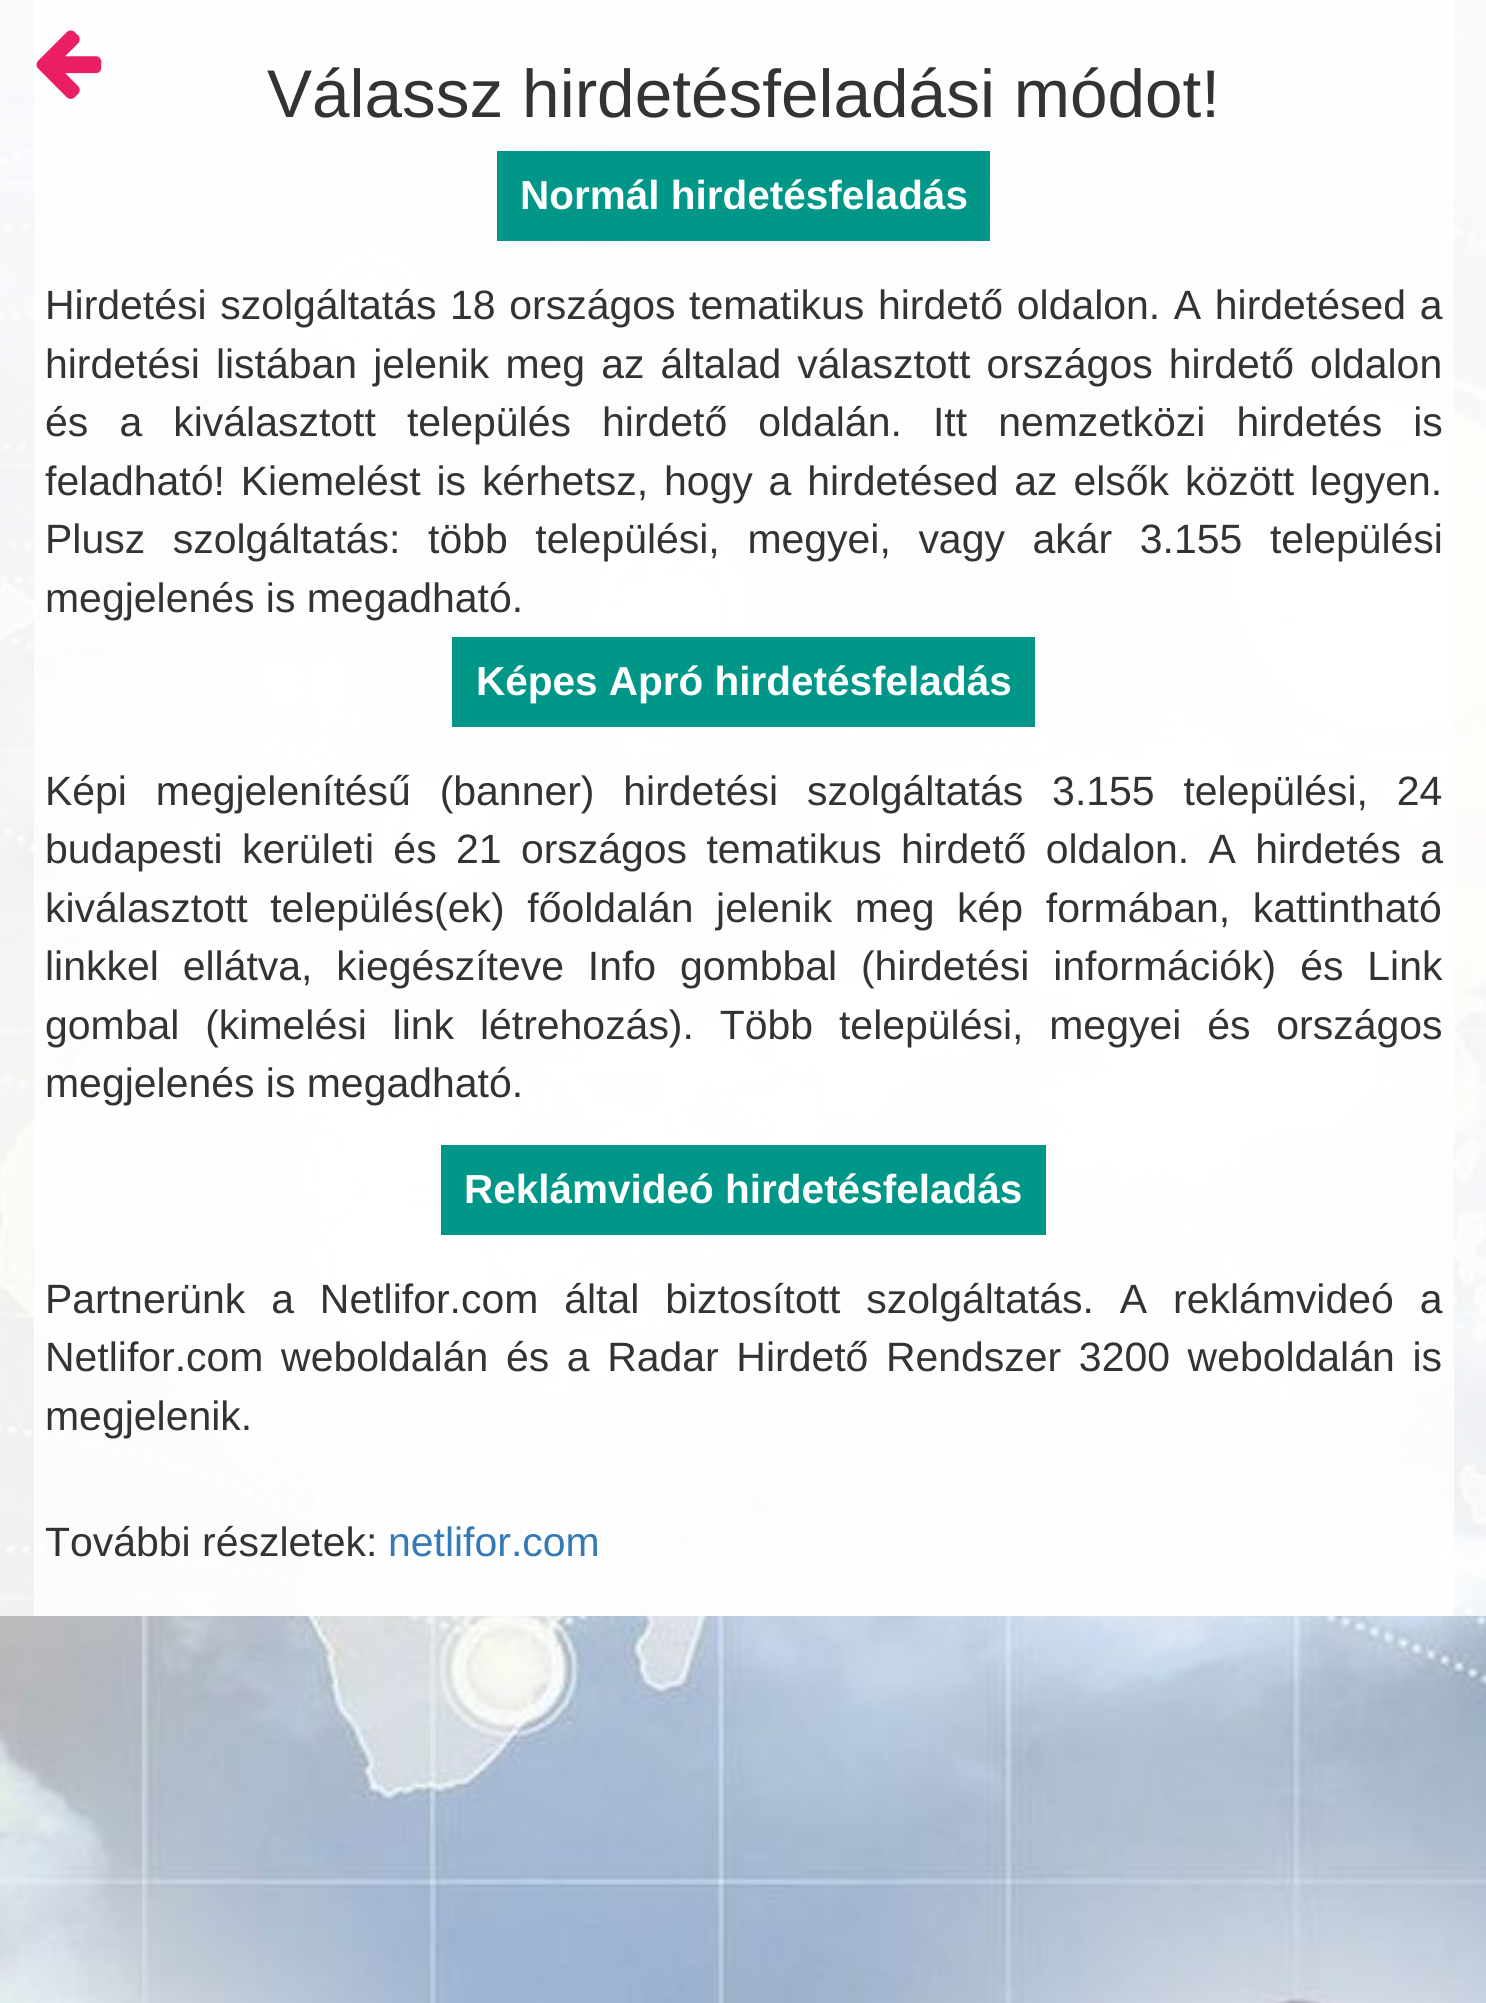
#include <cairo/cairo.h>
#include <math.h>
#include <stddef.h>

static cairo_t *cr;

static void use_color(int r, int g, int b) {
  cairo_set_source_rgb(cr, r / 255.0, g / 255.0, b / 255.0);
}

static void text(double x, double y, const char *s, const char *family, double size, int italic, int bold, int r, int g, int b) {
  cairo_select_font_face(cr, family, italic ? CAIRO_FONT_SLANT_ITALIC : CAIRO_FONT_SLANT_NORMAL,
    bold ? CAIRO_FONT_WEIGHT_BOLD : CAIRO_FONT_WEIGHT_NORMAL);
  cairo_set_font_size(cr, size);
  use_color(r, g, b);
  cairo_move_to(cr, x, y);
  cairo_show_text(cr, s);
}

static void spaced_text(double x, double y, const char *s, double letter, double word) {
  cairo_move_to(cr, x, y);
  while (*s) {
    char ch[5] = {0};
    int n = 0;
    do ch[n++] = *s++; while ((*s & 0xC0) == 0x80);
    cairo_show_text(cr, ch);
    cairo_rel_move_to(cr, letter + word * (*ch == ' '), 0);
  }
}

static void box(double x, double y, double w, double h, int r, int g, int b) {
  use_color(r, g, b);
  cairo_rectangle(cr, x, y, w, h);
  cairo_fill(cr);
}

static void picture(const char *path, double x, double y, double w, double h) {
  cairo_surface_t *image = cairo_image_surface_create_from_png(path);
  cairo_save(cr);
  cairo_set_source_surface(cr, image, x, y);
  cairo_rectangle(cr, x, y, w, h);
  cairo_fill(cr);
  cairo_restore(cr);
  cairo_surface_destroy(image);
}

static void draw(void) {
  use_color(255, 255, 255);
  cairo_paint(cr);
  picture("img_01.png", 0, 0, 1486, 2003);
  cairo_set_source_rgba(cr, 1, 1, 1, 0.8);
  cairo_rectangle(cr, 0, 0, 1486, 1616);
  cairo_fill(cr);
  cairo_rectangle(cr, 34, 0, 1420, 1616);
  cairo_fill(cr);
  picture("img_02.png", 36, 30, 66, 69);
  box(497, 151, 493, 90, 0, 150, 136);
  box(452, 637, 583, 90, 0, 150, 136);
  box(441, 1145, 605, 90, 0, 150, 136);
  text(267, 117, "Válassz hirdetésfeladási módot!", "Liberation Sans", 67.5, 0, 0, 51, 51, 51);
  text(520, 209, "Normál hirdetésfeladás", "Liberation Sans", 40.5, 0, 1, 255, 255, 255);
  cairo_select_font_face(cr, "Liberation Sans", CAIRO_FONT_SLANT_NORMAL, CAIRO_FONT_WEIGHT_NORMAL);
  cairo_set_font_size(cr, 40.95);
  use_color(51, 51, 51);
  spaced_text(45, 319, "Hirdetési szolgáltatás 18 országos tematikus hirdető oldalon. A hirdetésed a", 0, 2.25);
  spaced_text(45, 378, "hirdetési listában jelenik meg az általad választott országos hirdető oldalon", 0, 4.75);
  spaced_text(45, 436, "és a kiválasztott település hirdető oldalán. Itt nemzetközi hirdetés is", 0, 19.75);
  spaced_text(45, 495, "feladható! Kiemelést is kérhetsz, hogy a hirdetésed az elsők között legyen.", 0, 4.5);
  spaced_text(45, 553, "Plusz szolgáltatás: több települési, megyei, vagy akár 3.155 települési", 0, 16.25);
  text(45, 612, "megjelenés is megadható.", "Liberation Sans", 40.95, 0, 0, 51, 51, 51);
  text(476, 695, "Képes Apró hirdetésfeladás", "Liberation Sans", 40.5, 0, 1, 255, 255, 255);
  cairo_select_font_face(cr, "Liberation Sans", CAIRO_FONT_SLANT_NORMAL, CAIRO_FONT_WEIGHT_NORMAL);
  cairo_set_font_size(cr, 40.95);
  use_color(51, 51, 51);
  spaced_text(45, 805, "Képi megjelenítésű (banner) hirdetési szolgáltatás 3.155 települési, 24", 0, 17.5);
  spaced_text(45, 863, "budapesti kerületi és 21 országos tematikus hirdető oldalon. A hirdetés a", 0, 8);
  spaced_text(45, 922, "kiválasztott település(ek) főoldalán jelenik meg kép formában, kattintható", 0, 11.25);
  spaced_text(45, 980, "linkkel ellátva, kiegészíteve Info gombbal (hirdetési információk) és Link", 0, 12.5);
  spaced_text(45, 1039, "gombal (kimelési link létrehozás). Több települési, megyei és országos", 0, 14.5);
  text(45, 1097, "megjelenés is megadható.", "Liberation Sans", 40.95, 0, 0, 51, 51, 51);
  text(464, 1203, "Reklámvideó hirdetésfeladás", "Liberation Sans", 40.5, 0, 1, 255, 255, 255);
  cairo_select_font_face(cr, "Liberation Sans", CAIRO_FONT_SLANT_NORMAL, CAIRO_FONT_WEIGHT_NORMAL);
  cairo_set_font_size(cr, 40.95);
  use_color(51, 51, 51);
  spaced_text(45, 1313, "Partnerünk a Netlifor.com által biztosított szolgáltatás. A reklámvideó a", 0, 14.5);
  spaced_text(45, 1371, "Netlifor.com weboldalán és a Radar Hirdető Rendszer 3200 weboldalán is", 0, 6.25);
  text(45, 1430, "megjelenik.", "Liberation Sans", 40.95, 0, 0, 51, 51, 51);
  text(45, 1556, "További részletek:", "Liberation Sans", 40.95, 0, 0, 51, 51, 51);
  text(388, 1556, "netlifor.com", "Liberation Sans", 40.95, 0, 0, 51, 122, 183);
}

int main(void) {
  cairo_surface_t *surface = cairo_image_surface_create(CAIRO_FORMAT_RGB24, 1486, 2003);
  cr = cairo_create(surface);
  cairo_font_options_t *options = cairo_font_options_create();
  cairo_font_options_set_hint_metrics(options, CAIRO_HINT_METRICS_OFF);
  cairo_font_options_set_hint_style(options, CAIRO_HINT_STYLE_NONE);
  cairo_set_font_options(cr, options);
  cairo_set_miter_limit(cr, 4);
  draw();
  cairo_surface_write_to_png(surface, "out.png");
  cairo_font_options_destroy(options);
  cairo_destroy(cr);
  cairo_surface_destroy(surface);
  return 0;
}
